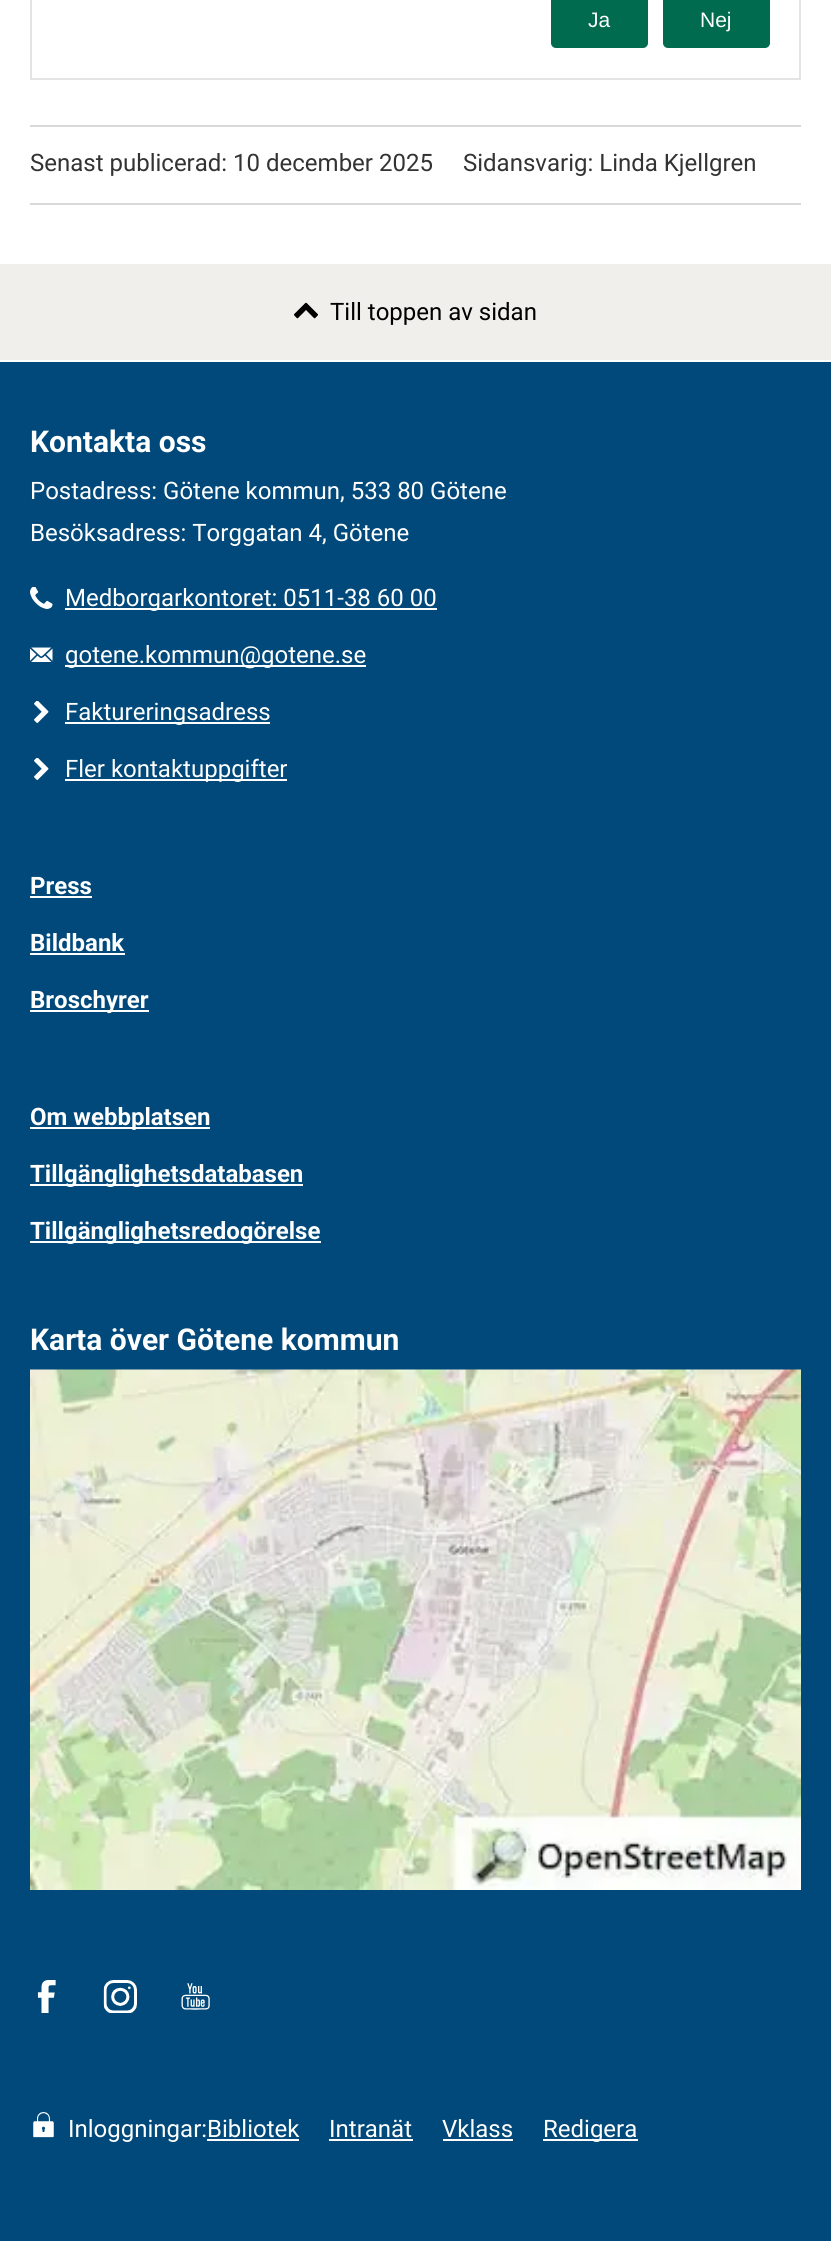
#include <cairo/cairo.h>
#include <math.h>
#include <stddef.h>

static cairo_t *cr;

static void use_color(int r, int g, int b) {
  cairo_set_source_rgb(cr, r / 255.0, g / 255.0, b / 255.0);
}

static void text(double x, double y, const char *s, const char *family, double size, int italic, int bold, int r, int g, int b) {
  cairo_select_font_face(cr, family, italic ? CAIRO_FONT_SLANT_ITALIC : CAIRO_FONT_SLANT_NORMAL,
    bold ? CAIRO_FONT_WEIGHT_BOLD : CAIRO_FONT_WEIGHT_NORMAL);
  cairo_set_font_size(cr, size);
  use_color(r, g, b);
  cairo_move_to(cr, x, y);
  cairo_show_text(cr, s);
}

static void box(double x, double y, double w, double h, int r, int g, int b) {
  use_color(r, g, b);
  cairo_rectangle(cr, x, y, w, h);
  cairo_fill(cr);
}

static void round_rect(double x, double y, double w, double h, double r) {
  cairo_new_sub_path(cr);
  cairo_arc(cr, x + w - r, y + h - r, r, 0, M_PI / 2);
  cairo_arc(cr, x + r, y + h - r, r, M_PI / 2, M_PI);
  cairo_arc(cr, x + r, y + r, r, M_PI, 1.5 * M_PI);
  cairo_arc(cr, x + w - r, y + r, r, 1.5 * M_PI, 2 * M_PI);
  cairo_close_path(cr);
}

static void picture(const char *path, double x, double y, double w, double h) {
  cairo_surface_t *image = cairo_image_surface_create_from_png(path);
  cairo_save(cr);
  cairo_set_source_surface(cr, image, x, y);
  cairo_rectangle(cr, x, y, w, h);
  cairo_fill(cr);
  cairo_restore(cr);
  cairo_surface_destroy(image);
}

static void draw(void) {
  use_color(255, 255, 255);
  cairo_paint(cr);
  cairo_rectangle(cr, 31, -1, 769, 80);
  use_color(228, 228, 228);
  cairo_stroke(cr);
  use_color(0, 107, 78);
  round_rect(551, -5, 97, 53, 5);
  cairo_fill(cr);
  round_rect(663, -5, 107, 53, 5);
  cairo_fill(cr);
  box(30, 125, 771, 2, 216, 216, 216);
  box(30, 203, 771, 2, 216, 216, 216);
  box(0, 264, 831, 96, 240, 239, 236);
  picture("img_01.png", 294, 302, 24, 17);
  box(0, 362, 831, 1879, 0, 73, 122);
  picture("img_02.png", 30, 587, 23, 22);
  box(65, 608, 372, 2, 255, 255, 255);
  picture("img_03.png", 30, 647, 23, 15);
  box(65, 665, 301, 2, 255, 255, 255);
  picture("img_04.png", 34, 701, 15, 22);
  box(65, 722, 205, 2, 255, 255, 255);
  picture("img_04.png", 34, 758, 15, 22);
  box(65, 779, 222, 2, 255, 255, 255);
  box(30, 896, 62, 2, 255, 255, 255);
  box(30, 953, 95, 2, 255, 255, 255);
  box(30, 1010, 119, 2, 255, 255, 255);
  box(30, 1127, 180, 2, 255, 255, 255);
  box(30, 1184, 273, 2, 255, 255, 255);
  box(30, 1241, 291, 2, 255, 255, 255);
  picture("img_05.png", 30, 1369, 771, 521);
  picture("img_06.png", 37, 1980, 19, 33);
  picture("img_07.png", 103, 1980, 34, 33);
  picture("img_08.png", 181, 1983, 29, 27);
  picture("img_09.png", 33, 2112, 21, 26);
  box(207, 2139, 92, 2, 255, 255, 255);
  box(329, 2139, 84, 2, 255, 255, 255);
  box(443, 2139, 70, 2, 255, 255, 255);
  box(543, 2139, 95, 2, 255, 255, 255);
  text(588, 27, "Ja", "Liberation Sans", 21, 0, 0, 255, 255, 255);
  text(700, 27, "Nej", "Liberation Sans", 21, 0, 0, 255, 255, 255);
  text(30, 171, "Senast publicerad: 10 december 2025", "Roboto", 24, 0, 0, 51, 51, 51);
  text(463, 171, "Sidansvarig: Linda Kjellgren", "Roboto", 24, 0, 0, 51, 51, 51);
  text(330, 320, "Till toppen av sidan", "Roboto", 24, 0, 0, 0, 0, 0);
  text(30, 452, "Kontakta oss", "Roboto", 30, 0, 1, 255, 255, 255);
  text(30, 499, "Postadress: Götene kommun, 533 80 Götene", "Roboto", 24, 0, 0, 255, 255, 255);
  text(30, 541, "Besöksadress: Torggatan 4, Götene", "Roboto", 24, 0, 0, 255, 255, 255);
  text(65, 606, "Medborgarkontoret: 0511-38 60 00", "Roboto", 24, 0, 0, 255, 255, 255);
  text(65, 663, "gotene.kommun@gotene.se", "Roboto", 24, 0, 0, 255, 255, 255);
  text(65, 720, "Faktureringsadress", "Roboto", 24, 0, 0, 255, 255, 255);
  text(65, 777, "Fler kontaktuppgifter", "Roboto", 24, 0, 0, 255, 255, 255);
  text(30, 894, "Press", "Roboto", 24, 0, 1, 255, 255, 255);
  text(30, 951, "Bildbank", "Roboto", 24, 0, 1, 255, 255, 255);
  text(30, 1008, "Broschyrer", "Roboto", 24, 0, 1, 255, 255, 255);
  text(30, 1125, "Om webbplatsen", "Roboto", 24, 0, 1, 255, 255, 255);
  text(30, 1182, "Tillgänglighetsdatabasen", "Roboto", 24, 0, 1, 255, 255, 255);
  text(30, 1239, "Tillgänglighetsredogörelse", "Roboto", 24, 0, 1, 255, 255, 255);
  text(30, 1350, "Karta över Götene kommun", "Roboto", 30, 0, 1, 255, 255, 255);
  text(68, 2137, "Inloggningar:Bibliotek", "Roboto", 24, 0, 0, 255, 255, 255);
  text(329, 2137, "Intranät", "Roboto", 24, 0, 0, 255, 255, 255);
  text(442, 2137, "Vklass", "Roboto", 24, 0, 0, 255, 255, 255);
  text(543, 2137, "Redigera", "Roboto", 24, 0, 0, 255, 255, 255);
}

int main(void) {
  cairo_surface_t *surface = cairo_image_surface_create(CAIRO_FORMAT_RGB24, 831, 2241);
  cr = cairo_create(surface);
  cairo_font_options_t *options = cairo_font_options_create();
  cairo_font_options_set_hint_metrics(options, CAIRO_HINT_METRICS_OFF);
  cairo_font_options_set_hint_style(options, CAIRO_HINT_STYLE_NONE);
  cairo_set_font_options(cr, options);
  cairo_set_miter_limit(cr, 4);
  draw();
  cairo_surface_write_to_png(surface, "out.png");
  cairo_font_options_destroy(options);
  cairo_destroy(cr);
  cairo_surface_destroy(surface);
  return 0;
}
